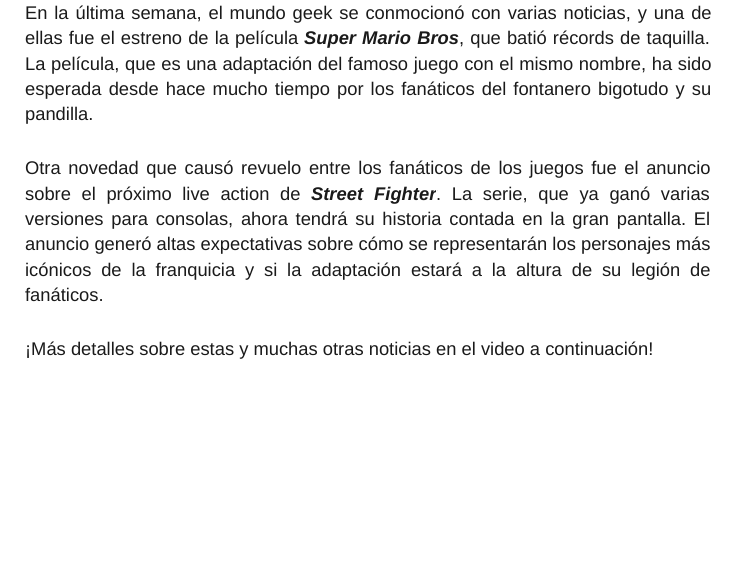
#include <cairo/cairo.h>
#include <math.h>
#include <stddef.h>

static cairo_t *cr;

static void use_color(int r, int g, int b) {
  cairo_set_source_rgb(cr, r / 255.0, g / 255.0, b / 255.0);
}

static void text(double x, double y, const char *s, const char *family, double size, int italic, int bold, int r, int g, int b) {
  cairo_select_font_face(cr, family, italic ? CAIRO_FONT_SLANT_ITALIC : CAIRO_FONT_SLANT_NORMAL,
    bold ? CAIRO_FONT_WEIGHT_BOLD : CAIRO_FONT_WEIGHT_NORMAL);
  cairo_set_font_size(cr, size);
  use_color(r, g, b);
  cairo_move_to(cr, x, y);
  cairo_show_text(cr, s);
}

static void spaced_text(double x, double y, const char *s, double letter, double word) {
  cairo_move_to(cr, x, y);
  while (*s) {
    char ch[5] = {0};
    int n = 0;
    do ch[n++] = *s++; while ((*s & 0xC0) == 0x80);
    cairo_show_text(cr, ch);
    cairo_rel_move_to(cr, letter + word * (*ch == ' '), 0);
  }
}

static void box(double x, double y, double w, double h, int r, int g, int b) {
  use_color(r, g, b);
  cairo_rectangle(cr, x, y, w, h);
  cairo_fill(cr);
}

static void draw(void) {
  use_color(255, 255, 255);
  cairo_paint(cr);
  cairo_select_font_face(cr, "Liberation Sans", CAIRO_FONT_SLANT_NORMAL, CAIRO_FONT_WEIGHT_NORMAL);
  cairo_set_font_size(cr, 18.35);
  use_color(26, 26, 26);
  spaced_text(25, 19, "En la última semana, el mundo geek se conmocionó con varias noticias, y una de", 0, 1.75);
  spaced_text(25, 44, "ellas fue el estreno de la película", 0, 1);
  cairo_select_font_face(cr, "Liberation Sans", CAIRO_FONT_SLANT_ITALIC, CAIRO_FONT_WEIGHT_BOLD);
  spaced_text(304, 44, "Super Mario Bros", 0, 1);
  cairo_select_font_face(cr, "Liberation Sans", CAIRO_FONT_SLANT_NORMAL, CAIRO_FONT_WEIGHT_NORMAL);
  spaced_text(459, 44, ", que batió récords de taquilla.", 0, 1);
  spaced_text(25, 70, "La película, que es una adaptación del famoso juego con el mismo nombre, ha sido", 0, 0.5);
  spaced_text(25, 95, "esperada desde hace mucho tiempo por los fanáticos del fontanero bigotudo y su", 0, 2);
  text(25, 120, "pandilla.", "Liberation Sans", 18.35, 0, 0, 26, 26, 26);
  spaced_text(25, 174, "Otra novedad que causó revuelo entre los fanáticos de los juegos fue el anuncio", 0, 2.5);
  spaced_text(25, 200, "sobre el próximo live action de", 0, 5.5);
  cairo_select_font_face(cr, "Liberation Sans", CAIRO_FONT_SLANT_ITALIC, CAIRO_FONT_WEIGHT_BOLD);
  spaced_text(311, 200, "Street Fighter", 0, 6);
  box(436, 190, 1, 3, 255, 255, 255);
  cairo_select_font_face(cr, "Liberation Sans", CAIRO_FONT_SLANT_NORMAL, CAIRO_FONT_WEIGHT_NORMAL);
  use_color(26, 26, 26);
  spaced_text(436, 200, ". La serie, que ya ganó varias", 0, 5.5);
  spaced_text(25, 225, "versiones para consolas, ahora tendrá su historia contada en la gran pantalla. El", 0, 2.6);
  text(25, 250, "anuncio generó altas expectativas sobre cómo se representarán los personajes más", "Liberation Sans", 18.35, 0, 0, 26, 26, 26);
  spaced_text(25, 276, "icónicos de la franquicia y si la adaptación estará a la altura de su legión de", 0, 4.75);
  text(25, 301, "fanáticos.", "Liberation Sans", 18.35, 0, 0, 26, 26, 26);
  text(25, 355, "¡Más detalles sobre estas y muchas otras noticias en el video a continuación!", "Liberation Sans", 18.35, 0, 0, 26, 26, 26);
}

int main(void) {
  cairo_surface_t *surface = cairo_image_surface_create(CAIRO_FORMAT_RGB24, 734, 588);
  cr = cairo_create(surface);
  cairo_font_options_t *options = cairo_font_options_create();
  cairo_font_options_set_hint_metrics(options, CAIRO_HINT_METRICS_OFF);
  cairo_font_options_set_hint_style(options, CAIRO_HINT_STYLE_NONE);
  cairo_set_font_options(cr, options);
  cairo_set_miter_limit(cr, 4);
  draw();
  cairo_surface_write_to_png(surface, "out.png");
  cairo_font_options_destroy(options);
  cairo_destroy(cr);
  cairo_surface_destroy(surface);
  return 0;
}
